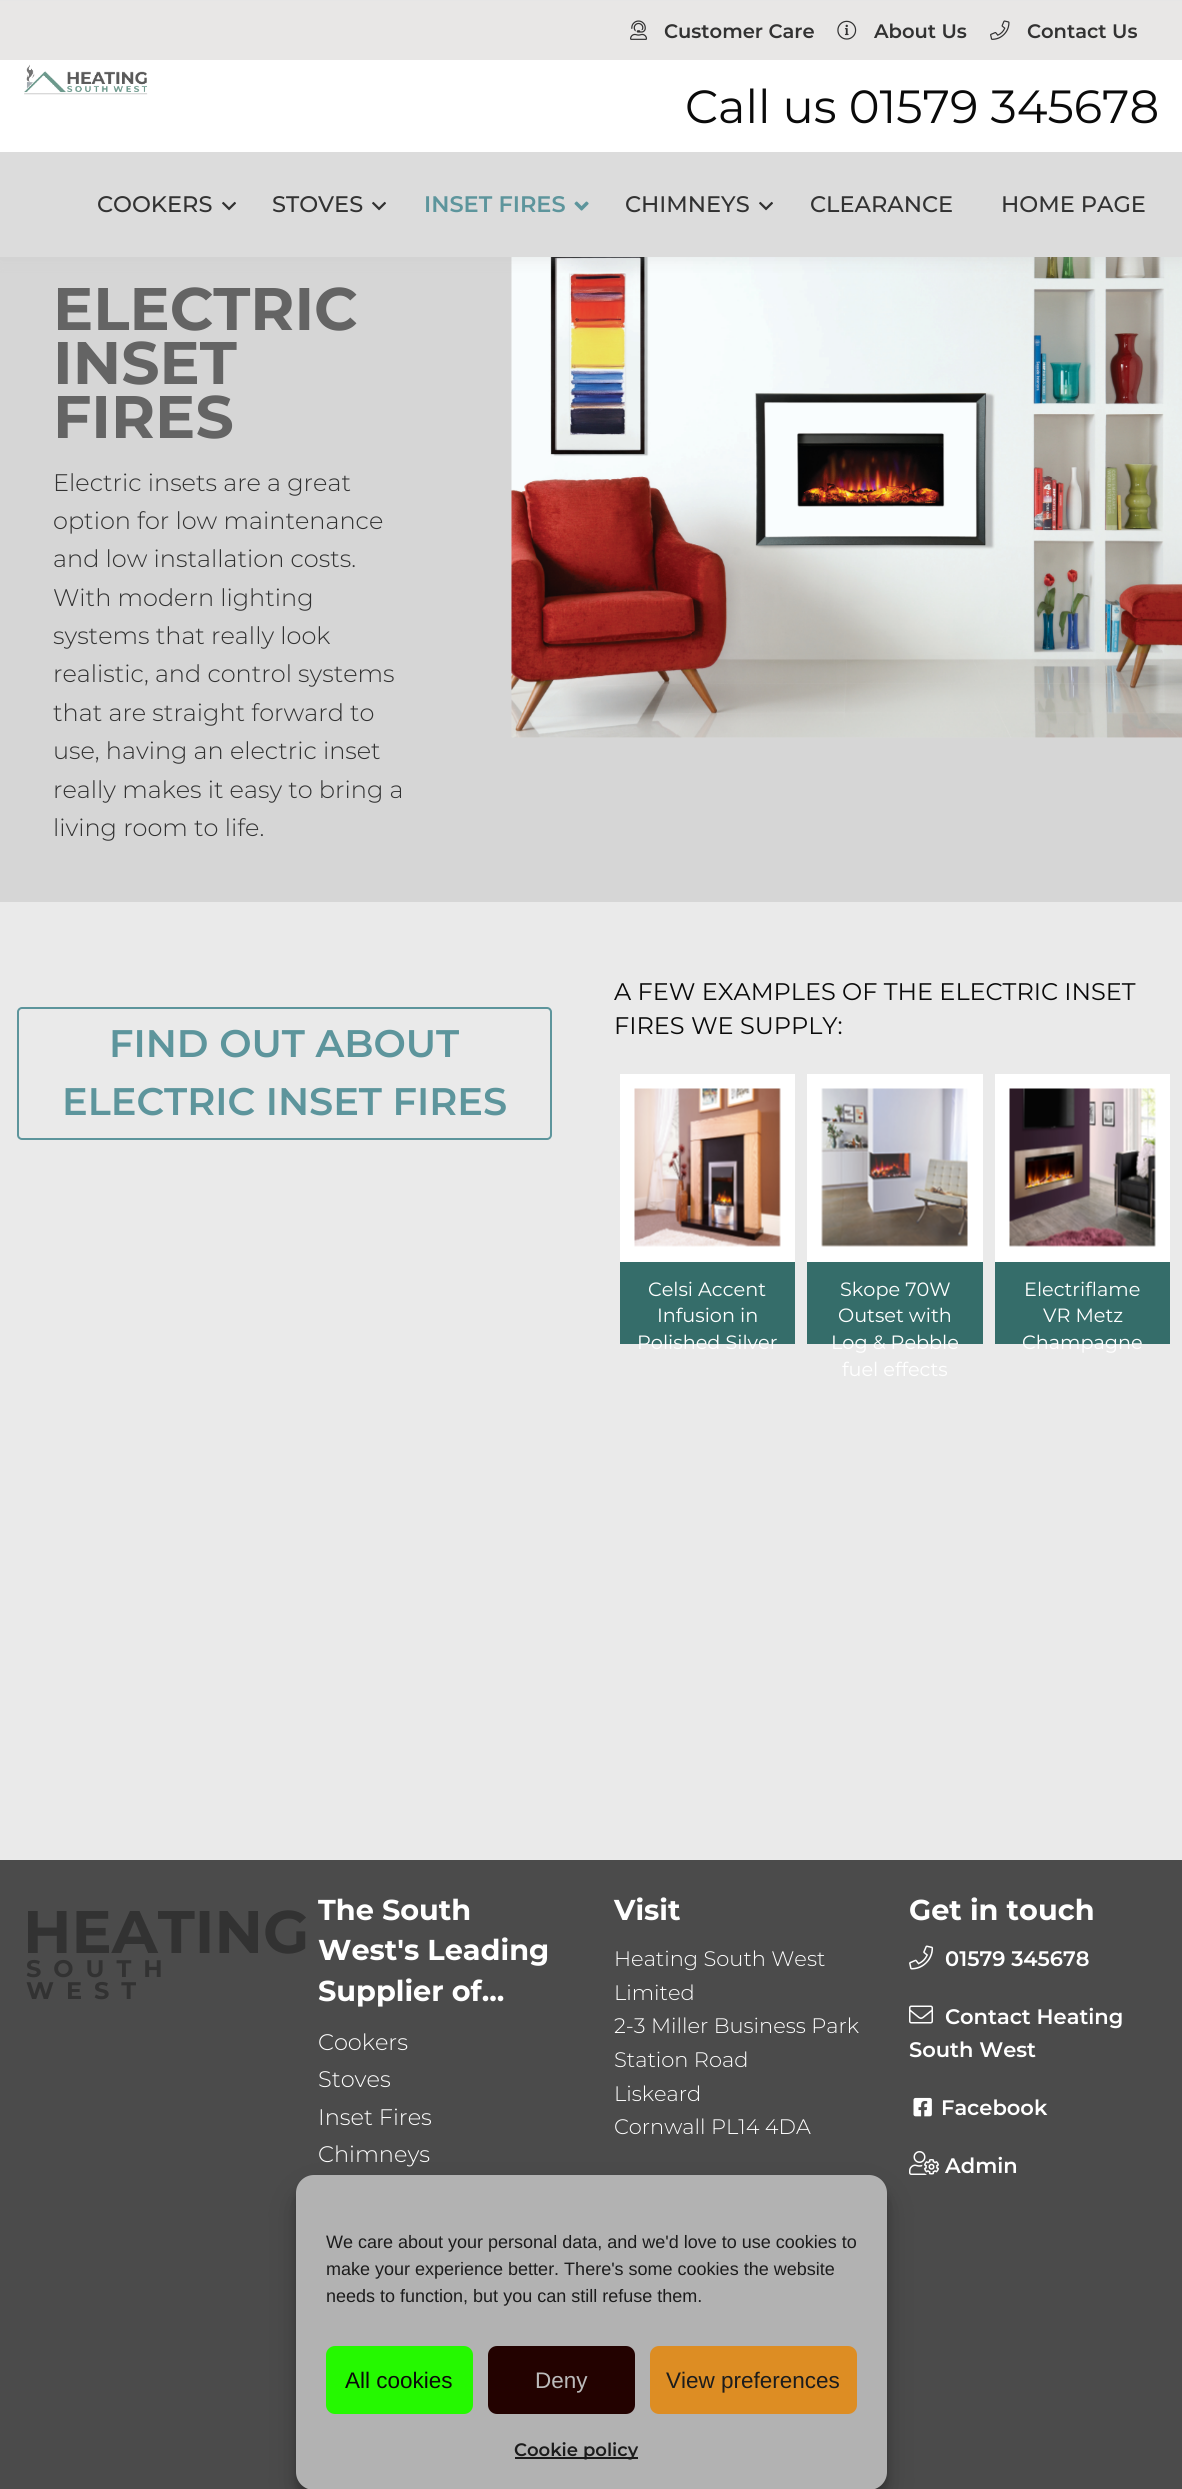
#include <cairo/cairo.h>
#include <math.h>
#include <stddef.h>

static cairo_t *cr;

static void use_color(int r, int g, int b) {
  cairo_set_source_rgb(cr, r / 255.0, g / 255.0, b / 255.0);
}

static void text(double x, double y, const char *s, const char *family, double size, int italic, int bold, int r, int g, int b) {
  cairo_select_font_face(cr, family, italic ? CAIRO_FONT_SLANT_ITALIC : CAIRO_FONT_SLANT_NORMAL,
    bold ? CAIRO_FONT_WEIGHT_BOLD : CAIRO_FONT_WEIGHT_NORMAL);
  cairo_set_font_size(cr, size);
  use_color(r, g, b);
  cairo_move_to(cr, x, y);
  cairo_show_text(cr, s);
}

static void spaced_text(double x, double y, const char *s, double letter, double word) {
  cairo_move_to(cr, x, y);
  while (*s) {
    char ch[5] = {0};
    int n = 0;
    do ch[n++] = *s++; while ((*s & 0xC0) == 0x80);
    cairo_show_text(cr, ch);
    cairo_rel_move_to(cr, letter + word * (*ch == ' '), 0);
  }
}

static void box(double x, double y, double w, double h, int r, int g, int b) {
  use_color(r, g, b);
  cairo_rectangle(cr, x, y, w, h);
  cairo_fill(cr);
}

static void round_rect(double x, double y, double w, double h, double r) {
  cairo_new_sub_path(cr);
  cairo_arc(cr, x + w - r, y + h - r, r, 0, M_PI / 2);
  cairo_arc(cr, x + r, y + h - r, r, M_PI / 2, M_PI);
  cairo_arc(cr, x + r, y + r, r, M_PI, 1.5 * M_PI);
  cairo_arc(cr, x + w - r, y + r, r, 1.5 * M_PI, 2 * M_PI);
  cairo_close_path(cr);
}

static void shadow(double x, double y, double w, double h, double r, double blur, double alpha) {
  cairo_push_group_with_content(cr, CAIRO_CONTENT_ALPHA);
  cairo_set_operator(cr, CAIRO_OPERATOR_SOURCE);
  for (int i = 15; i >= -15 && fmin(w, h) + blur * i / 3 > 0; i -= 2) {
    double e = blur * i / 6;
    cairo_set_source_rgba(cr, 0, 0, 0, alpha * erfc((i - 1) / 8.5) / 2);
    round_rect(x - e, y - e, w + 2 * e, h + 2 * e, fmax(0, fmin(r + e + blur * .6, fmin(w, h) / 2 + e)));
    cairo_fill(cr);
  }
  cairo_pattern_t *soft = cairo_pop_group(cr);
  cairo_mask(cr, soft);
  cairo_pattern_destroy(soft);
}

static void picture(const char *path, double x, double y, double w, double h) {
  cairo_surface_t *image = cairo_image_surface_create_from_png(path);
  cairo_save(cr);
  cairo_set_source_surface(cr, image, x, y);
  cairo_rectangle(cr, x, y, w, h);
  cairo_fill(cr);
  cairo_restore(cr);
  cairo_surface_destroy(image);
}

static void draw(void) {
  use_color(234, 234, 234);
  cairo_paint(cr);
  box(0, 257, 1182, 645, 214, 214, 214);
  picture("img_07.png", 511, 257, 671, 481);
  use_color(196, 196, 196);
  shadow(0, 3, 1182, 257, 0, 7.5, 0.3);
  box(0, 1, 1182, 59, 232, 231, 230);
  picture("img_01.png", 630, 20, 18, 20);
  picture("img_02.png", 837, 20, 20, 20);
  picture("img_03.png", 990, 20, 20, 20);
  box(0, 60, 1182, 92, 255, 255, 255);
  picture("img_04.png", 24, 64, 124, 31);
  box(0, 152, 1182, 105, 220, 220, 220);
  picture("img_05.png", 222, 201, 14, 10);
  picture("img_05.png", 372, 201, 14, 10);
  picture("img_06.png", 574, 201, 15, 10);
  picture("img_05.png", 759, 201, 14, 10);
  round_rect(18, 1008, 533, 131, 4);
  use_color(93, 149, 156);
  cairo_stroke(cr);
  box(620, 1074, 175, 188, 255, 255, 255);
  picture("img_08.png", 634, 1088, 147, 159);
  box(620, 1262, 175, 82, 53, 109, 106);
  box(807, 1074, 176, 188, 255, 255, 255);
  picture("img_09.png", 821, 1088, 147, 159);
  box(807, 1262, 176, 82, 53, 109, 106);
  box(995, 1074, 175, 188, 255, 255, 255);
  picture("img_10.png", 1009, 1088, 147, 159);
  box(995, 1262, 175, 82, 53, 109, 106);
  box(0, 1860, 1182, 629, 75, 75, 75);
  picture("img_11.png", 909, 1945, 25, 25);
  picture("img_12.png", 909, 2005, 24, 19);
  picture("img_13.png", 913, 2097, 19, 20);
  picture("img_14.png", 909, 2151, 30, 24);
  use_color(0, 0, 0);
  shadow(296, 2184, 591, 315, 18, 4.5, 0.23);
  shadow(296, 2190, 591, 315, 18, 15, 0.19);
  use_color(178, 178, 178);
  round_rect(296, 2175, 591, 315, 18);
  cairo_fill(cr);
  use_color(37, 249, 0);
  round_rect(327, 2347, 145, 66, 8);
  cairo_fill_preserve(cr);
  cairo_stroke(cr);
  use_color(35, 2, 0);
  round_rect(489, 2347, 145, 66, 8);
  cairo_fill_preserve(cr);
  cairo_stroke(cr);
  use_color(221, 141, 35);
  round_rect(651, 2347, 205, 66, 8);
  cairo_fill_preserve(cr);
  cairo_stroke(cr);
  box(515, 2457, 123, 2, 28, 28, 28);
  text(664, 38, "Customer Care", "Montserrat SemiBold", 19.5, 0, 0, 50, 50, 50);
  text(874, 38, "About Us", "Montserrat SemiBold", 19.5, 0, 0, 50, 50, 50);
  text(1027, 38, "Contact Us", "Montserrat SemiBold", 19.5, 0, 0, 50, 50, 50);
  text(685, 123, "Call us 01579 345678", "Montserrat", 46.5, 0, 0, 10, 10, 10);
  text(97, 212, "COOKERS", "Montserrat Medium", 22.5, 0, 0, 50, 50, 50);
  text(272, 212, "STOVES", "Montserrat Medium", 22.5, 0, 0, 50, 50, 50);
  text(424, 212, "INSET FIRES", "Montserrat SemiBold", 22.5, 0, 0, 93, 149, 156);
  text(625, 212, "CHIMNEYS", "Montserrat Medium", 22.5, 0, 0, 50, 50, 50);
  text(810, 212, "CLEARANCE", "Montserrat Medium", 22.5, 0, 0, 50, 50, 50);
  text(1001, 212, "HOME PAGE", "Montserrat Medium", 22.5, 0, 0, 50, 50, 50);
  text(53, 330, "ELECTRIC", "Montserrat", 60, 0, 1, 100, 100, 100);
  text(53, 384, "INSET", "Montserrat", 60, 0, 1, 100, 100, 100);
  text(53, 438, "FIRES", "Montserrat", 60, 0, 1, 100, 100, 100);
  text(53, 491, "Electric insets are a great", "Montserrat Light", 24, 0, 0, 50, 50, 50);
  text(53, 529, "option for low maintenance", "Montserrat Light", 24, 0, 0, 50, 50, 50);
  text(53, 567, "and low installation costs.", "Montserrat Light", 24, 0, 0, 50, 50, 50);
  text(53, 606, "With modern lighting", "Montserrat Light", 24, 0, 0, 50, 50, 50);
  text(53, 644, "systems that really look", "Montserrat Light", 24, 0, 0, 50, 50, 50);
  text(53, 682, "realistic, and control systems", "Montserrat Light", 24, 0, 0, 50, 50, 50);
  text(53, 721, "that are straight forward to", "Montserrat Light", 24, 0, 0, 50, 50, 50);
  text(53, 759, "use, having an electric inset", "Montserrat Light", 24, 0, 0, 50, 50, 50);
  text(53, 798, "really makes it easy to bring a", "Montserrat Light", 24, 0, 0, 50, 50, 50);
  text(53, 836, "living room to life.", "Montserrat Light", 24, 0, 0, 50, 50, 50);
  text(109, 1057, "FIND OUT ABOUT", "Montserrat SemiBold", 38.4, 0, 0, 93, 149, 156);
  text(62, 1115, "ELECTRIC INSET FIRES", "Montserrat SemiBold", 38.4, 0, 0, 93, 149, 156);
  text(614, 1000, "A FEW EXAMPLES OF THE ELECTRIC INSET", "Montserrat", 24, 0, 0, 10, 10, 10);
  text(614, 1034, "FIRES WE SUPPLY:", "Montserrat", 24, 0, 0, 10, 10, 10);
  text(648, 1296, "Celsi Accent", "Montserrat", 19.25, 0, 0, 255, 255, 255);
  text(657, 1322, "Infusion in", "Montserrat", 19.25, 0, 0, 255, 255, 255);
  text(637, 1349, "Polished Silver", "Montserrat", 19.25, 0, 0, 255, 255, 255);
  text(840, 1296, "Skope 70W", "Montserrat", 19.25, 0, 0, 255, 255, 255);
  text(838, 1322, "Outset with", "Montserrat", 19.25, 0, 0, 255, 255, 255);
  text(831, 1349, "Log & Pebble", "Montserrat", 19.25, 0, 0, 255, 255, 255);
  text(842, 1376, "fuel effects", "Montserrat", 19.25, 0, 0, 255, 255, 255);
  text(1024, 1296, "Electriflame", "Montserrat", 19.25, 0, 0, 255, 255, 255);
  text(1043, 1322, "VR Metz", "Montserrat", 19.25, 0, 0, 255, 255, 255);
  text(1022, 1349, "Champagne", "Montserrat", 19.25, 0, 0, 255, 255, 255);
  text(23, 1953, "HEATING", "Montserrat", 60, 0, 1, 50, 50, 50);
  cairo_set_font_size(cr, 24);
  spaced_text(26, 1977, "SOUTH", 12, 0);
  spaced_text(26, 1999, "WEST", 12, 0);
  text(318, 1920, "The South", "Montserrat", 28.75, 0, 1, 255, 255, 255);
  text(318, 1960, "West's Leading", "Montserrat", 28.75, 0, 1, 255, 255, 255);
  text(318, 2001, "Supplier of...", "Montserrat", 28.75, 0, 1, 255, 255, 255);
  text(318, 2050, "Cookers", "Montserrat Light", 22.5, 0, 0, 255, 255, 255);
  text(318, 2087, "Stoves", "Montserrat Light", 22.5, 0, 0, 255, 255, 255);
  text(318, 2125, "Inset Fires", "Montserrat Light", 22.5, 0, 0, 255, 255, 255);
  text(318, 2162, "Chimneys", "Montserrat Light", 22.5, 0, 0, 255, 255, 255);
  text(614, 1920, "Visit", "Montserrat", 28.75, 0, 1, 255, 255, 255);
  text(614, 1966, "Heating South West", "Montserrat Light", 21, 0, 0, 255, 255, 255);
  text(614, 2000, "Limited", "Montserrat Light", 21, 0, 0, 255, 255, 255);
  text(614, 2033, "2-3 Miller Business Park", "Montserrat Light", 21, 0, 0, 255, 255, 255);
  text(614, 2067, "Station Road", "Montserrat Light", 21, 0, 0, 255, 255, 255);
  text(614, 2101, "Liskeard", "Montserrat Light", 21, 0, 0, 255, 255, 255);
  text(614, 2134, "Cornwall PL14 4DA", "Montserrat Light", 21, 0, 0, 255, 255, 255);
  text(909, 1920, "Get in touch", "Montserrat", 28.75, 0, 1, 255, 255, 255);
  text(945, 1966, "01579 345678", "Montserrat SemiBold", 21, 0, 0, 255, 255, 255);
  text(945, 2024, "Contact Heating", "Montserrat SemiBold", 21, 0, 0, 255, 255, 255);
  text(909, 2057, "South West", "Montserrat SemiBold", 21, 0, 0, 255, 255, 255);
  text(941, 2115, "Facebook", "Montserrat SemiBold", 21, 0, 0, 255, 255, 255);
  text(945, 2173, "Admin", "Montserrat SemiBold", 21, 0, 0, 255, 255, 255);
  text(326, 2248, "We care about your personal data, and we'd love to use cookies to", "Liberation Sans", 18, 0, 0, 28, 28, 28);
  text(326, 2275, "make your experience better. There's some cookies the website", "Liberation Sans", 18, 0, 0, 28, 28, 28);
  text(326, 2302, "needs to function, but you can still refuse them.", "Liberation Sans", 18, 0, 0, 28, 28, 28);
  text(345, 2388, "All cookies", "Liberation Sans", 22.5, 0, 0, 10, 10, 10);
  text(535, 2388, "Deny", "Liberation Sans", 22.5, 0, 0, 187, 187, 187);
  text(666, 2388, "View preferences", "Liberation Sans", 22.5, 0, 0, 28, 28, 28);
  text(514, 2456, "Cookie policy", "Montserrat SemiBold", 18, 0, 0, 28, 28, 28);
}

int main(void) {
  cairo_surface_t *surface = cairo_image_surface_create(CAIRO_FORMAT_RGB24, 1182, 2489);
  cr = cairo_create(surface);
  cairo_font_options_t *options = cairo_font_options_create();
  cairo_font_options_set_hint_metrics(options, CAIRO_HINT_METRICS_OFF);
  cairo_font_options_set_hint_style(options, CAIRO_HINT_STYLE_NONE);
  cairo_set_font_options(cr, options);
  cairo_set_miter_limit(cr, 4);
  draw();
  cairo_surface_write_to_png(surface, "out.png");
  cairo_font_options_destroy(options);
  cairo_destroy(cr);
  cairo_surface_destroy(surface);
  return 0;
}
